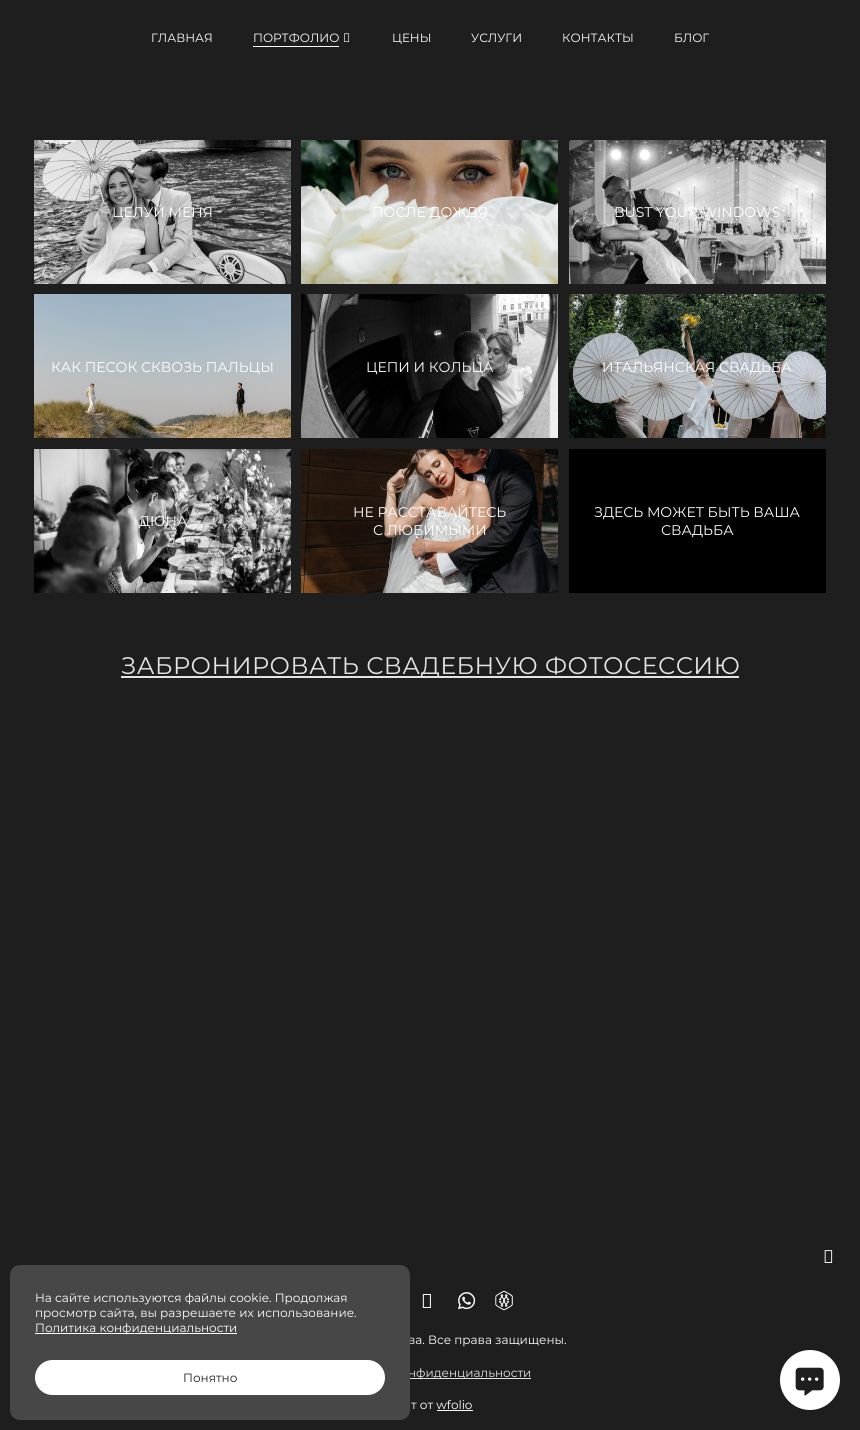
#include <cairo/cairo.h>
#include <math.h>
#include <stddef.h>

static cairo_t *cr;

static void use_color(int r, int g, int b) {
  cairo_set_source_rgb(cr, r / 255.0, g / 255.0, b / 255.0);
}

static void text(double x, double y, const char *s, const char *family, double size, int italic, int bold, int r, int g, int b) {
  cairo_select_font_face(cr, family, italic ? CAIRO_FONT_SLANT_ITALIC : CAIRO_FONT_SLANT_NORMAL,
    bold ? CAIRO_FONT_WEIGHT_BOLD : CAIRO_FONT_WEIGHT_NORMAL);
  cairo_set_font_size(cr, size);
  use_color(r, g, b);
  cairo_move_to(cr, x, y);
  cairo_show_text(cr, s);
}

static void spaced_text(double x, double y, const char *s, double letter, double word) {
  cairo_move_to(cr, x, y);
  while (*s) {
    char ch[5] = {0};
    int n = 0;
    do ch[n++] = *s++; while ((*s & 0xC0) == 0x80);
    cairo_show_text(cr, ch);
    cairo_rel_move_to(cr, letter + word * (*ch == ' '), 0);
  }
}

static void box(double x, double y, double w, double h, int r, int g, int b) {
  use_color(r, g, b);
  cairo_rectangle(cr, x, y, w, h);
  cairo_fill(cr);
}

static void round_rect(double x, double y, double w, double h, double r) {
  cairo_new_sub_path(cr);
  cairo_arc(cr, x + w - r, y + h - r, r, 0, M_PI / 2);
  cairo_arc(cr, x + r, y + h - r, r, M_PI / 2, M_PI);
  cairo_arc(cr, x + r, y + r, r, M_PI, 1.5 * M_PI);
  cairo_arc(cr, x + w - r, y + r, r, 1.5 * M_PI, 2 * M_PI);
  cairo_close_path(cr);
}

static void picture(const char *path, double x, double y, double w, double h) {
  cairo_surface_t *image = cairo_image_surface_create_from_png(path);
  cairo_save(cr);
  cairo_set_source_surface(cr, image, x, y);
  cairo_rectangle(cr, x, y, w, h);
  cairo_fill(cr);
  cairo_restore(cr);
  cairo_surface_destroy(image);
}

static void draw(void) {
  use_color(30, 30, 30);
  cairo_paint(cr);
  box(253, 46, 86, 1, 255, 255, 255);
  picture("img_01.png", 344, 33, 6, 9);
  picture("img_02.png", 34, 140, 257, 144);
  picture("img_03.png", 301, 140, 257, 144);
  picture("img_04.png", 569, 140, 257, 144);
  picture("img_05.png", 34, 294, 257, 144);
  picture("img_06.png", 301, 294, 257, 144);
  picture("img_07.png", 569, 294, 257, 144);
  picture("img_08.png", 34, 449, 257, 144);
  picture("img_09.png", 301, 449, 257, 144);
  box(569, 449, 257, 144, 0, 0, 0);
  box(121, 676, 618, 2, 228, 228, 228);
  picture("img_10.png", 824, 1250, 9, 13);
  picture("img_11.png", 422, 1294, 9, 14);
  picture("img_12.png", 458, 1292, 18, 18);
  picture("img_13.png", 495, 1290, 18, 21);
  box(410, 1378, 121, 1, 228, 228, 228);
  box(437, 1410, 36, 1, 255, 255, 255);
  cairo_arc(cr, 810, 1380, 30, 0, 2 * M_PI);
  cairo_fill(cr);
  picture("img_14.png", 795, 1367, 29, 29);
  text(151, 42, "ГЛАВНАЯ", "Montserrat", 12, 0, 0, 255, 255, 255);
  text(253, 42, "ПОРТФОЛИО", "Montserrat", 12, 0, 0, 255, 255, 255);
  text(392, 42, "ЦЕНЫ", "Montserrat", 12, 0, 0, 255, 255, 255);
  text(471, 42, "УСЛУГИ", "Montserrat", 12, 0, 0, 255, 255, 255);
  text(562, 42, "КОНТАКТЫ", "Montserrat", 12, 0, 0, 255, 255, 255);
  text(674, 42, "БЛОГ", "Montserrat", 12, 0, 0, 255, 255, 255);
  text(112, 217, "ЦЕЛУЙ МЕНЯ", "Montserrat", 14, 0, 0, 255, 255, 255);
  text(372, 217, "ПОСЛЕ ДОЖДЯ", "Montserrat", 14, 0, 0, 255, 255, 255);
  text(614, 217, "BUST YOUR WINDOWS", "Montserrat", 14, 0, 0, 255, 255, 255);
  text(51, 372, "КАК ПЕСОК СКВОЗЬ ПАЛЬЦЫ", "Montserrat", 14, 0, 0, 255, 255, 255);
  text(366, 372, "ЦЕПИ И КОЛЬЦА", "Montserrat", 14, 0, 0, 255, 255, 255);
  text(602, 372, "ИТАЛЬЯНСКАЯ СВАДЬБА", "Montserrat", 14, 0, 0, 255, 255, 255);
  text(139, 526, "ДЮНА", "Montserrat", 14, 0, 0, 255, 255, 255);
  text(353, 517, "НЕ РАССТАВАЙТЕСЬ", "Montserrat", 14, 0, 0, 255, 255, 255);
  text(373, 535, "С ЛЮБИМЫМИ", "Montserrat", 14, 0, 0, 255, 255, 255);
  text(594, 517, "ЗДЕСЬ МОЖЕТ БЫТЬ ВАША", "Montserrat", 14, 0, 0, 255, 255, 255);
  text(661, 535, "СВАДЬБА", "Montserrat", 14, 0, 0, 255, 255, 255);
  cairo_set_font_size(cr, 24);
  use_color(228, 228, 228);
  spaced_text(121, 674, "ЗАБРОНИРОВАТЬ СВАДЕБНУЮ ФОТОСЕССИЮ", 0.5, 0);
  text(408, 1344, "ва. Все права защищены.", "Montserrat", 12, 0, 0, 255, 255, 255);
  text(408, 1377, "нфиденциальности", "Montserrat", 12, 0, 0, 228, 228, 228);
  text(411, 1409, "т от wfolio", "Montserrat", 12, 0, 0, 255, 255, 255);
  use_color(71, 71, 71);
  round_rect(10, 1265, 400, 155, 10);
  cairo_fill(cr);
  text(35, 1302, "На сайте используются файлы cookie. Продолжая", "Montserrat", 12, 0, 0, 255, 255, 255);
  text(35, 1317, "просмотр сайта, вы разрешаете их использование.", "Montserrat", 12, 0, 0, 255, 255, 255);
  box(35, 1333, 202, 1, 255, 255, 255);
  text(35, 1332, "Политика конфиденциальности", "Montserrat", 12, 0, 0, 255, 255, 255);
  round_rect(35, 1360, 350, 35, 17.5);
  cairo_fill(cr);
  text(183, 1382, "Понятно", "Montserrat", 12, 0, 0, 30, 30, 30);
}

int main(void) {
  cairo_surface_t *surface = cairo_image_surface_create(CAIRO_FORMAT_RGB24, 860, 1430);
  cr = cairo_create(surface);
  cairo_font_options_t *options = cairo_font_options_create();
  cairo_font_options_set_hint_metrics(options, CAIRO_HINT_METRICS_OFF);
  cairo_font_options_set_hint_style(options, CAIRO_HINT_STYLE_NONE);
  cairo_set_font_options(cr, options);
  cairo_set_miter_limit(cr, 4);
  draw();
  cairo_surface_write_to_png(surface, "out.png");
  cairo_font_options_destroy(options);
  cairo_destroy(cr);
  cairo_surface_destroy(surface);
  return 0;
}
